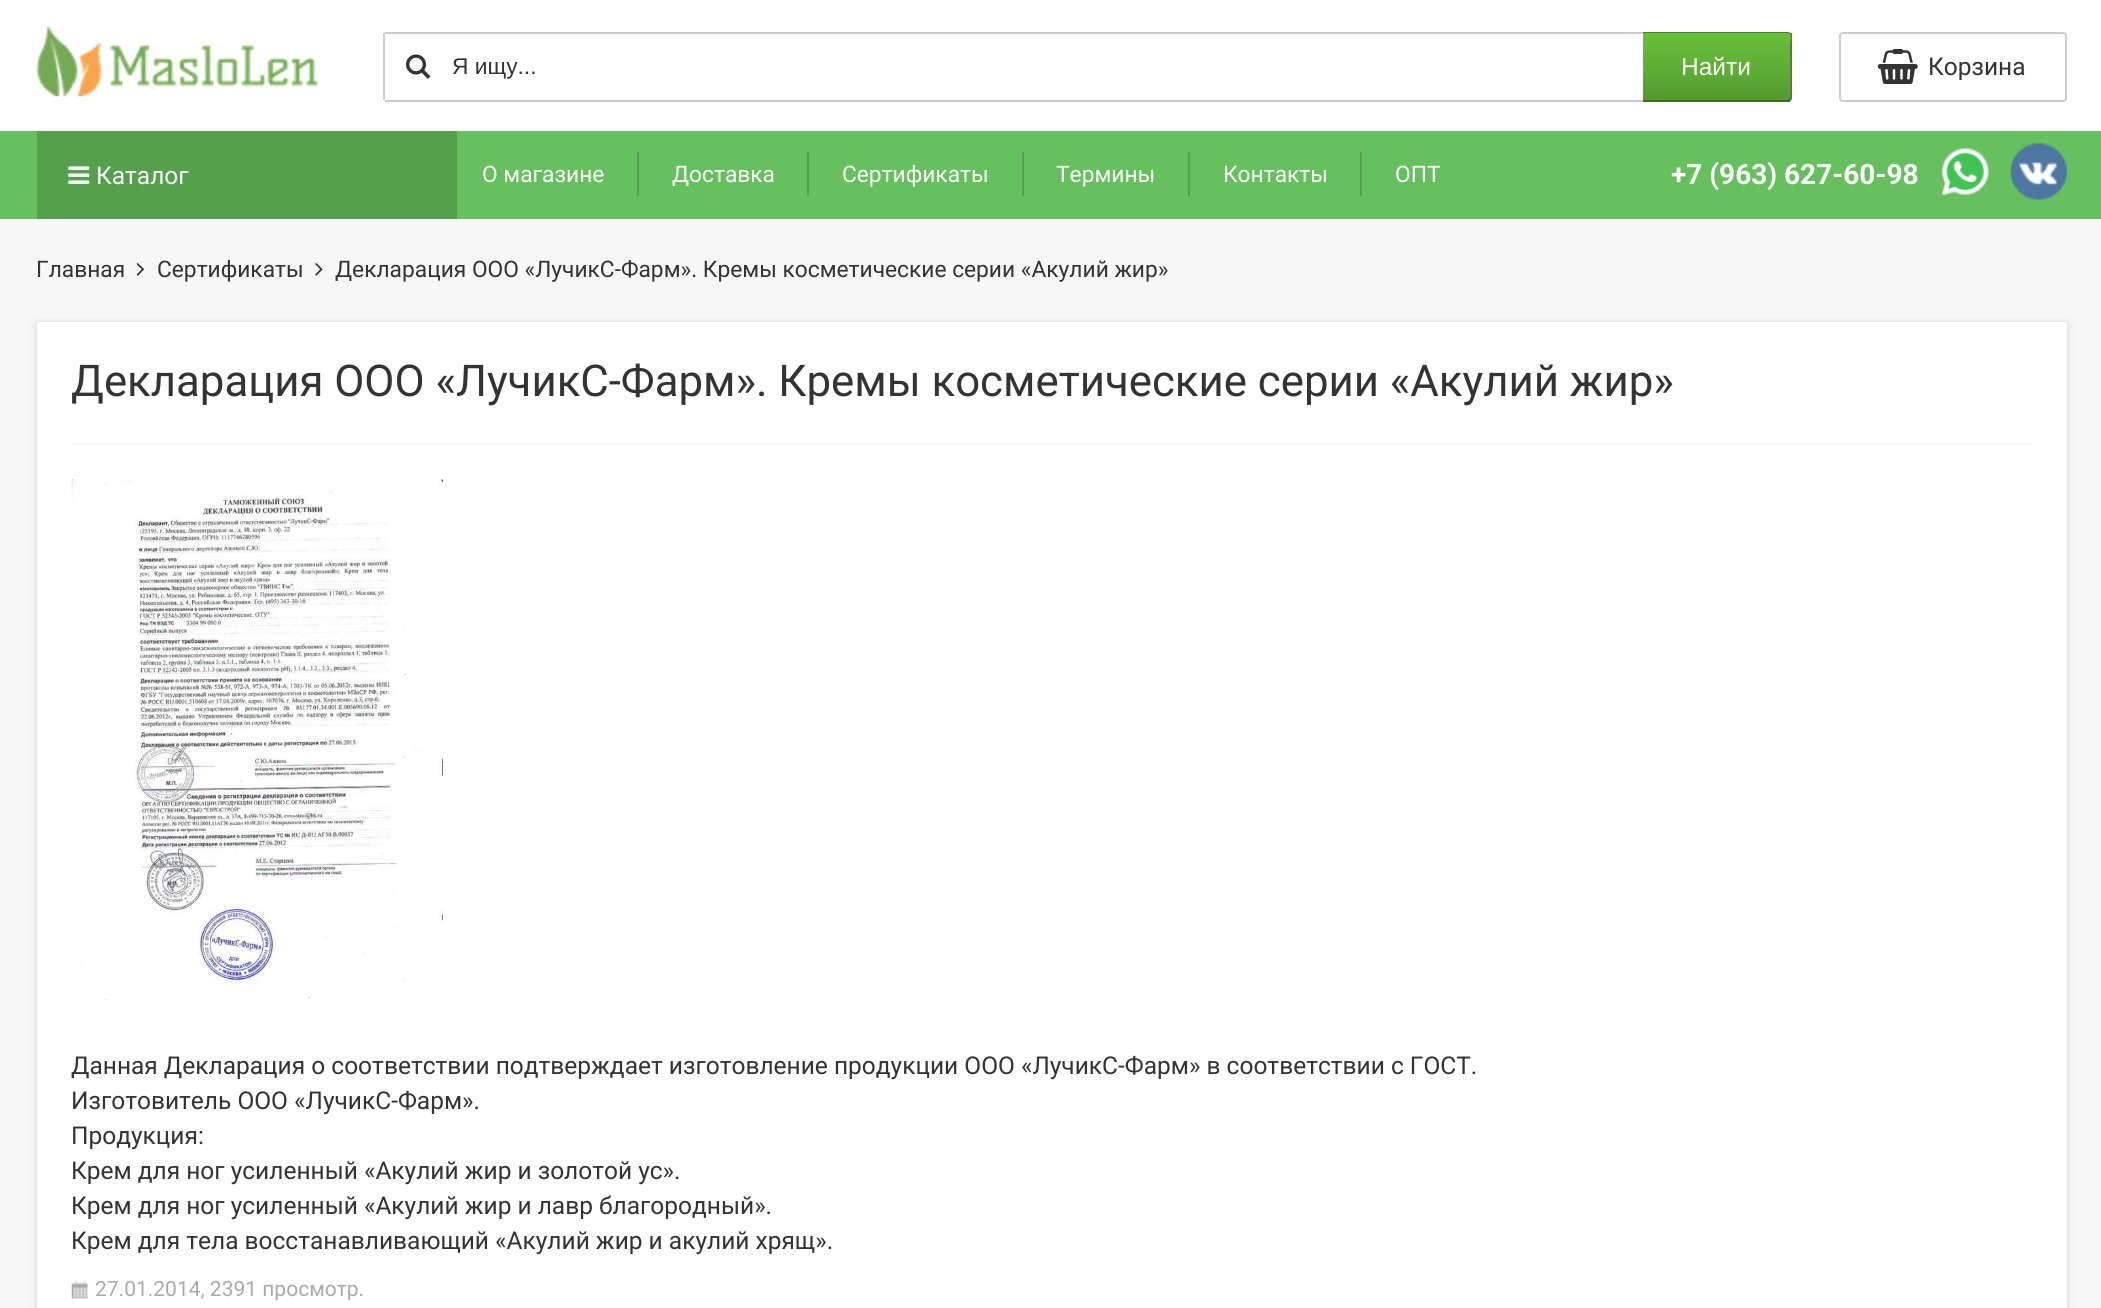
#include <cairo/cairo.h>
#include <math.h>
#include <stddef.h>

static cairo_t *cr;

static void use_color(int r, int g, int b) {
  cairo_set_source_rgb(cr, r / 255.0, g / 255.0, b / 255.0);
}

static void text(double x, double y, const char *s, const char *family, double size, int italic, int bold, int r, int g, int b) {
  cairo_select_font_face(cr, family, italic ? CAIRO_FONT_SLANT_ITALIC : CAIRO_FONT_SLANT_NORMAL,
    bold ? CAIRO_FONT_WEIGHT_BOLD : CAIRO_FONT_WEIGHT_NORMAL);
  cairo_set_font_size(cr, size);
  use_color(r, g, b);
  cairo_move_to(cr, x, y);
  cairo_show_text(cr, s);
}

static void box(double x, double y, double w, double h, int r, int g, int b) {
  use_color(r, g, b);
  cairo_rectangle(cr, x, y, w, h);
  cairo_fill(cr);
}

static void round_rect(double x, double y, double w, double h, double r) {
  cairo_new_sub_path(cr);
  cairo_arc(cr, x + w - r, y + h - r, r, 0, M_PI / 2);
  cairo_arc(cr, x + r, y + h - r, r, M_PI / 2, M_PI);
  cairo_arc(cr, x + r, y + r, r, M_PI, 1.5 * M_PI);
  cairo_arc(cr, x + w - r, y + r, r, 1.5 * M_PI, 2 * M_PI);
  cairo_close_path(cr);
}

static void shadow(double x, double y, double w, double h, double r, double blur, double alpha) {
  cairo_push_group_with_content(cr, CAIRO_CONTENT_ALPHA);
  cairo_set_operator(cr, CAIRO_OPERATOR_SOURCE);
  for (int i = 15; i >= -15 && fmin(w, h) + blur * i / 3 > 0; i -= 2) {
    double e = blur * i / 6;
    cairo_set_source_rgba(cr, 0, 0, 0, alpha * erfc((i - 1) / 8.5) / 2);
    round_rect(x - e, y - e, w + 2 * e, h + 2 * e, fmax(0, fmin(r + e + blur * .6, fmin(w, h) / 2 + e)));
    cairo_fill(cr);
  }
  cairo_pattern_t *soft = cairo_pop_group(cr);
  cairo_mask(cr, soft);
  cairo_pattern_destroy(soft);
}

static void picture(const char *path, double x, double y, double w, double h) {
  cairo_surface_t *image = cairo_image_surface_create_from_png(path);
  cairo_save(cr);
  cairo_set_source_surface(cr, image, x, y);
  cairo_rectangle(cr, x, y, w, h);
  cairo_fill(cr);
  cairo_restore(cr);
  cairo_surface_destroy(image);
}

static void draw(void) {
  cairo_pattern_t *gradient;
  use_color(247, 247, 247);
  cairo_paint(cr);
  box(0, 0, 2101, 131, 255, 255, 255);
  picture("img_01.png", 36, 26, 283, 71);
  box(385, 32, 1258, 2, 204, 204, 204);
  box(385, 100, 1258, 2, 204, 204, 204);
  box(383, 33, 2, 67, 204, 204, 204);
  picture("img_02.png", 406, 54, 25, 25);
  cairo_save(cr);
  cairo_new_path(cr);
  cairo_move_to(cr, 1643, 32);
  cairo_line_to(cr, 1788, 32);
  cairo_curve_to(cr, 1790, 32, 1792, 34, 1792, 36);
  cairo_line_to(cr, 1792, 98);
  cairo_curve_to(cr, 1792, 100, 1790, 102, 1788, 102);
  cairo_line_to(cr, 1643, 102);
  cairo_close_path(cr);
  cairo_clip(cr);
  gradient = cairo_pattern_create_linear(1717, 33, 1717, 100);
  cairo_pattern_add_color_stop_rgba(gradient, 0, 0.412, 0.753, 0.231, 1);
  cairo_pattern_add_color_stop_rgba(gradient, 0.66, 0.361, 0.663, 0.204, 1);
  cairo_pattern_add_color_stop_rgba(gradient, 1, 0.329, 0.6, 0.184, 1);
  cairo_set_source(cr, gradient);
  cairo_pattern_destroy(gradient);
  cairo_rectangle(cr, 1643, 33, 149, 67);
  cairo_fill(cr);
  cairo_restore(cr);
  use_color(71, 130, 40);
  cairo_new_path(cr);
  cairo_move_to(cr, 1643, 33);
  cairo_line_to(cr, 1643, 32);
  cairo_line_to(cr, 1788, 32);
  cairo_line_to(cr, 1791, 33);
  cairo_line_to(cr, 1790, 34);
  cairo_line_to(cr, 1788, 33);
  cairo_close_path(cr);
  cairo_fill(cr);
  cairo_new_path(cr);
  cairo_move_to(cr, 1791, 33);
  cairo_curve_to(cr, 1792, 33, 1792, 34, 1792, 35);
  cairo_line_to(cr, 1792, 98);
  cairo_line_to(cr, 1791, 100);
  cairo_line_to(cr, 1790, 99);
  cairo_curve_to(cr, 1791, 97, 1790, 51, 1790, 46);
  cairo_curve_to(cr, 1790, 42, 1792, 37, 1790, 34);
  cairo_close_path(cr);
  cairo_fill(cr);
  use_color(60, 111, 34);
  cairo_new_path(cr);
  cairo_move_to(cr, 1643, 100);
  cairo_line_to(cr, 1788, 100);
  cairo_line_to(cr, 1790, 99);
  cairo_line_to(cr, 1791, 100);
  cairo_line_to(cr, 1790, 102);
  cairo_line_to(cr, 1643, 102);
  cairo_close_path(cr);
  cairo_fill(cr);
  round_rect(1840, 33, 226, 68, 3);
  use_color(204, 204, 204);
  cairo_stroke(cr);
  picture("img_03.png", 1877, 49, 41, 35);
  box(0, 131, 2101, 88, 102, 192, 93);
  box(37, 131, 420, 88, 84, 160, 76);
  picture("img_04.png", 68, 166, 22, 18);
  box(637, 152, 2, 44, 84, 160, 76);
  box(807, 152, 2, 44, 84, 160, 76);
  box(1022, 152, 2, 44, 84, 160, 76);
  box(1188, 152, 2, 44, 84, 160, 76);
  box(1360, 152, 2, 44, 84, 160, 76);
  picture("img_05.png", 1941, 148, 48, 48);
  picture("img_06.png", 2010, 143, 57, 57);
  picture("img_07.png", 136, 263, 8, 13);
  picture("img_08.png", 315, 263, 8, 13);
  use_color(0, 0, 0);
  shadow(37, 326, 2030, 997, 0, 5, 0.1);
  shadow(37, 322, 2030, 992, 0, 2, 0.1);
  box(37, 322, 2030, 986, 255, 255, 255);
  box(72, 443, 1960, 2, 247, 247, 247);
  picture("img_09.png", 71, 479, 372, 522);
  picture("img_10.png", 71, 1281, 17, 18);
  text(1681, 75, "Найти", "Liberation Sans", 24.5, 0, 0, 255, 255, 255);
  text(452, 74, "Я ищу...", "Liberation Sans", 22.75, 0, 0, 51, 51, 51);
  text(1928, 75, "Корзина", "Roboto", 24.5, 0, 0, 51, 51, 51);
  text(96, 184, "Каталог", "Roboto", 24.5, 0, 0, 255, 255, 255);
  text(482, 182, "О магазине", "Roboto", 22.75, 0, 0, 255, 255, 255);
  text(672, 182, "Доставка", "Roboto", 22.75, 0, 0, 255, 255, 255);
  text(842, 182, "Сертификаты", "Roboto", 22.75, 0, 0, 255, 255, 255);
  text(1056, 182, "Термины", "Roboto", 22.75, 0, 0, 255, 255, 255);
  text(1223, 182, "Контакты", "Roboto", 22.75, 0, 0, 255, 255, 255);
  text(1395, 182, "ОПТ", "Roboto", 22.75, 0, 0, 255, 255, 255);
  text(1671, 184, "+7 (963) 627-60-98", "Roboto", 28, 0, 1, 255, 255, 255);
  text(36, 277, "Главная", "Roboto", 22.75, 0, 0, 51, 51, 51);
  text(157, 277, "Сертификаты", "Roboto", 22.75, 0, 0, 51, 51, 51);
  text(335, 277, "Декларация ООО «ЛучикС-Фарм». Кремы косметические серии «Акулий жир»", "Roboto", 22.75, 0, 0, 51, 51, 51);
  text(71, 396, "Декларация ООО «ЛучикС-Фарм». Кремы косметические серии «Акулий жир»", "Roboto", 43.75, 0, 0, 51, 51, 51);
  text(71, 1074, "Данная Декларация о соответствии подтверждает изготовление продукции ООО «ЛучикС-Фарм» в соответствии с ГОСТ.", "Roboto", 24.5, 0, 0, 51, 51, 51);
  text(71, 1109, "Изготовитель ООО «ЛучикС-Фарм».", "Roboto", 24.5, 0, 0, 51, 51, 51);
  text(71, 1144, "Продукция:", "Roboto", 24.5, 0, 0, 51, 51, 51);
  text(71, 1179, "Крем для ног усиленный «Акулий жир и золотой ус».", "Roboto", 24.5, 0, 0, 51, 51, 51);
  text(71, 1214, "Крем для ног усиленный «Акулий жир и лавр благородный».", "Roboto", 24.5, 0, 0, 51, 51, 51);
  text(71, 1249, "Крем для тела восстанавливающий «Акулий жир и акулий хрящ».", "Roboto", 24.5, 0, 0, 51, 51, 51);
  text(95, 1296, "27.01.2014, 2391 просмотр.", "Roboto", 21, 0, 0, 170, 170, 170);
}

int main(void) {
  cairo_surface_t *surface = cairo_image_surface_create(CAIRO_FORMAT_RGB24, 2101, 1308);
  cr = cairo_create(surface);
  cairo_font_options_t *options = cairo_font_options_create();
  cairo_font_options_set_hint_metrics(options, CAIRO_HINT_METRICS_OFF);
  cairo_font_options_set_hint_style(options, CAIRO_HINT_STYLE_NONE);
  cairo_set_font_options(cr, options);
  cairo_set_miter_limit(cr, 4);
  draw();
  cairo_surface_write_to_png(surface, "out.png");
  cairo_font_options_destroy(options);
  cairo_destroy(cr);
  cairo_surface_destroy(surface);
  return 0;
}
